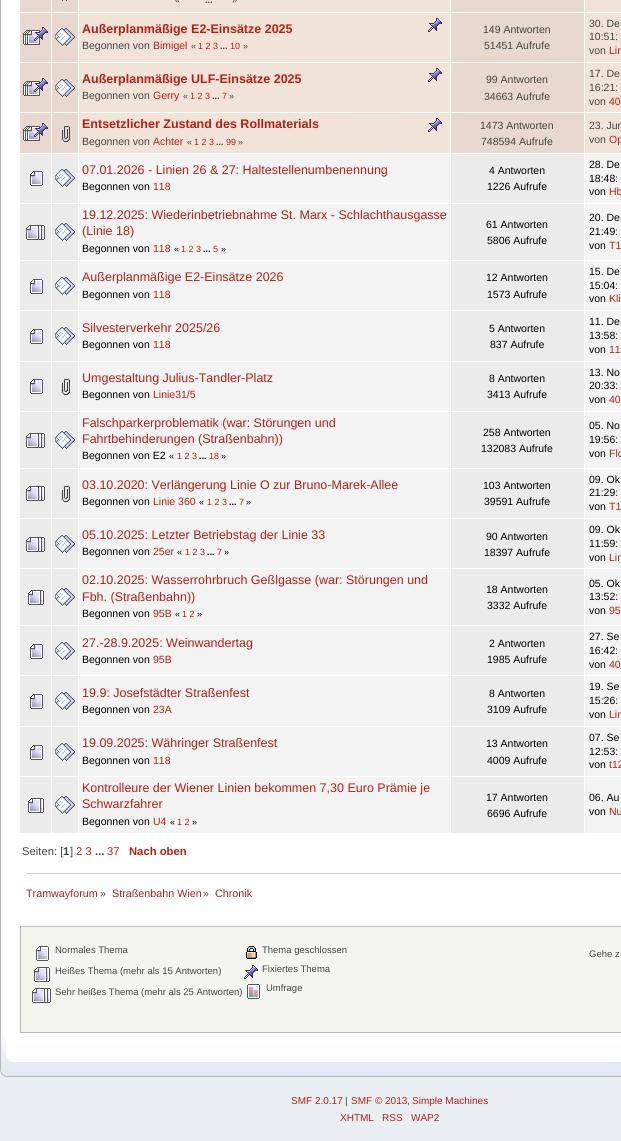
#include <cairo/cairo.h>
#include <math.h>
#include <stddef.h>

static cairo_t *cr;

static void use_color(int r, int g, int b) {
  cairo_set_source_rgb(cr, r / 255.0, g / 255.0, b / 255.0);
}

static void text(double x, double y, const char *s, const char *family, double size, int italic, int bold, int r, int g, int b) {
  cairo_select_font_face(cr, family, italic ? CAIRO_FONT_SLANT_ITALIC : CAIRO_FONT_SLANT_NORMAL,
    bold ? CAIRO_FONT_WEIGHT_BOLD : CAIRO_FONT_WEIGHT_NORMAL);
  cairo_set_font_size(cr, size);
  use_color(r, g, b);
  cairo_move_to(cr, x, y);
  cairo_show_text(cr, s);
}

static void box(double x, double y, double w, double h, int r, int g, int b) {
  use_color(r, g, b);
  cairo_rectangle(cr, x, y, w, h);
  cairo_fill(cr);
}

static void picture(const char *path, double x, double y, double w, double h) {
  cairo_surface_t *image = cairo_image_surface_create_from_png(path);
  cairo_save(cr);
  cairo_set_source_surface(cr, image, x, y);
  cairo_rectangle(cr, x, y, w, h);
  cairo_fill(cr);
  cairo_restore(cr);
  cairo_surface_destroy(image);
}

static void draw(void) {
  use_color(233, 238, 242);
  cairo_paint(cr);
  box(1, 0, 620, 1033, 255, 255, 255);
  box(0, 0, 1, 1033, 183, 183, 183);
  box(20, 0, 31, 12, 232, 216, 207);
  box(52, 0, 26, 12, 232, 216, 207);
  picture("img_01.png", 62, 0, 5, 1);
  box(79, 0, 371, 12, 242, 227, 217);
  box(451, 0, 133, 12, 232, 216, 207);
  box(585, 0, 36, 12, 242, 227, 217);
  box(20, 13, 31, 49, 232, 216, 207);
  picture("img_02.png", 23, 27, 25, 18);
  box(52, 13, 26, 49, 232, 216, 207);
  picture("img_03.png", 55, 28, 20, 18);
  box(79, 13, 371, 49, 242, 227, 217);
  picture("img_04.png", 428, 18, 14, 14);
  box(451, 13, 133, 49, 232, 216, 207);
  box(585, 13, 36, 49, 242, 227, 217);
  box(20, 63, 31, 49, 232, 216, 207);
  picture("img_02.png", 23, 78, 25, 18);
  box(52, 63, 26, 49, 232, 216, 207);
  picture("img_03.png", 55, 79, 20, 18);
  box(79, 63, 371, 49, 242, 227, 217);
  picture("img_04.png", 428, 68, 14, 14);
  box(451, 63, 133, 49, 232, 216, 207);
  box(585, 63, 36, 49, 242, 227, 217);
  box(20, 113, 31, 40, 232, 216, 207);
  picture("img_02.png", 23, 123, 25, 18);
  box(52, 113, 26, 40, 232, 216, 207);
  picture("img_05.png", 61, 125, 9, 17);
  box(79, 113, 371, 40, 242, 227, 217);
  picture("img_04.png", 428, 118, 14, 14);
  box(451, 113, 133, 40, 232, 216, 207);
  box(585, 113, 36, 40, 242, 227, 217);
  box(20, 154, 31, 49, 235, 235, 235);
  picture("img_06.png", 30, 171, 13, 15);
  box(52, 154, 26, 49, 235, 235, 235);
  picture("img_07.png", 55, 169, 20, 18);
  box(79, 154, 371, 49, 243, 243, 243);
  box(451, 154, 133, 49, 235, 235, 235);
  box(585, 154, 36, 49, 243, 243, 243);
  box(20, 204, 31, 56, 235, 235, 235);
  picture("img_08.png", 26, 225, 19, 15);
  box(52, 204, 26, 56, 235, 235, 235);
  picture("img_07.png", 55, 223, 20, 18);
  box(79, 204, 371, 56, 243, 243, 243);
  box(451, 204, 133, 56, 235, 235, 235);
  box(585, 204, 36, 56, 243, 243, 243);
  box(20, 261, 31, 49, 235, 235, 235);
  picture("img_06.png", 30, 279, 13, 15);
  box(52, 261, 26, 49, 235, 235, 235);
  picture("img_07.png", 55, 277, 20, 18);
  box(79, 261, 371, 49, 243, 243, 243);
  box(451, 261, 133, 49, 235, 235, 235);
  box(585, 261, 36, 49, 243, 243, 243);
  box(20, 311, 31, 50, 235, 235, 235);
  picture("img_06.png", 30, 329, 13, 15);
  box(52, 311, 26, 50, 235, 235, 235);
  picture("img_07.png", 55, 327, 20, 18);
  box(79, 311, 371, 50, 243, 243, 243);
  box(451, 311, 133, 50, 235, 235, 235);
  box(585, 311, 36, 50, 243, 243, 243);
  box(20, 362, 31, 49, 235, 235, 235);
  picture("img_06.png", 30, 379, 13, 15);
  box(52, 362, 26, 49, 235, 235, 235);
  picture("img_09.png", 61, 378, 9, 17);
  box(79, 362, 371, 49, 243, 243, 243);
  box(451, 362, 133, 49, 235, 235, 235);
  box(585, 362, 36, 49, 243, 243, 243);
  box(20, 412, 31, 56, 235, 235, 235);
  picture("img_08.png", 26, 433, 19, 15);
  box(52, 412, 26, 56, 235, 235, 235);
  picture("img_07.png", 55, 431, 20, 18);
  box(79, 412, 371, 56, 243, 243, 243);
  box(451, 412, 133, 56, 235, 235, 235);
  box(585, 412, 36, 56, 243, 243, 243);
  box(20, 469, 31, 49, 235, 235, 235);
  picture("img_08.png", 26, 486, 19, 15);
  box(52, 469, 26, 49, 235, 235, 235);
  picture("img_09.png", 61, 485, 9, 17);
  box(79, 469, 371, 49, 243, 243, 243);
  box(451, 469, 133, 49, 235, 235, 235);
  box(585, 469, 36, 49, 243, 243, 243);
  box(20, 519, 31, 49, 235, 235, 235);
  picture("img_08.png", 26, 537, 19, 15);
  box(52, 519, 26, 49, 235, 235, 235);
  picture("img_07.png", 55, 535, 20, 18);
  box(79, 519, 371, 49, 243, 243, 243);
  box(451, 519, 133, 49, 235, 235, 235);
  box(585, 519, 36, 49, 243, 243, 243);
  box(20, 569, 31, 56, 235, 235, 235);
  picture("img_10.png", 28, 590, 16, 15);
  box(52, 569, 26, 56, 235, 235, 235);
  picture("img_07.png", 55, 588, 20, 18);
  box(79, 569, 371, 56, 243, 243, 243);
  box(451, 569, 133, 56, 235, 235, 235);
  box(585, 569, 36, 56, 243, 243, 243);
  box(20, 626, 31, 49, 235, 235, 235);
  picture("img_06.png", 30, 644, 13, 15);
  box(52, 626, 26, 49, 235, 235, 235);
  picture("img_07.png", 55, 642, 20, 18);
  box(79, 626, 371, 49, 243, 243, 243);
  box(451, 626, 133, 49, 235, 235, 235);
  box(585, 626, 36, 49, 243, 243, 243);
  box(20, 676, 31, 50, 235, 235, 235);
  picture("img_06.png", 30, 694, 13, 15);
  box(52, 676, 26, 50, 235, 235, 235);
  picture("img_07.png", 55, 692, 20, 18);
  box(79, 676, 371, 50, 243, 243, 243);
  box(451, 676, 133, 50, 235, 235, 235);
  box(585, 676, 36, 50, 243, 243, 243);
  box(20, 727, 31, 49, 235, 235, 235);
  picture("img_06.png", 30, 745, 13, 15);
  box(52, 727, 26, 49, 235, 235, 235);
  picture("img_07.png", 55, 743, 20, 18);
  box(79, 727, 371, 49, 243, 243, 243);
  box(451, 727, 133, 49, 235, 235, 235);
  box(585, 727, 36, 49, 243, 243, 243);
  box(20, 777, 31, 56, 235, 235, 235);
  picture("img_10.png", 28, 798, 16, 15);
  box(52, 777, 26, 56, 235, 235, 235);
  picture("img_07.png", 55, 796, 20, 18);
  box(79, 777, 371, 56, 243, 243, 243);
  box(451, 777, 133, 56, 235, 235, 235);
  box(585, 777, 36, 56, 243, 243, 243);
  box(26, 873, 595, 1, 204, 204, 204);
  use_color(245, 245, 240);
  cairo_rectangle(cr, 20.5, 926.5, 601, 106);
  cairo_fill_preserve(cr);
  use_color(187, 187, 187);
  cairo_set_line_width(cr, 1);
  cairo_stroke(cr);
  picture("img_11.png", 36, 946, 13, 15);
  picture("img_12.png", 34, 967, 16, 15);
  picture("img_13.png", 32, 988, 19, 15);
  picture("img_14.png", 246, 946, 11, 13);
  picture("img_15.png", 244, 965, 14, 14);
  picture("img_16.png", 247, 984, 13, 15);
  picture("img_17.png", 0, 1033, 621, 44);
  text(175, 3, "«", "Liberation Sans", 9, 0, 0, 68, 68, 68);
  text(205, 3, "...", "Liberation Sans", 9, 0, 1, 68, 68, 68);
  text(232, 3, "»", "Liberation Sans", 9, 0, 0, 68, 68, 68);
  text(82, 33, "Außerplanmäßige E2-Einsätze 2025", "Liberation Sans", 12.5, 0, 1, 179, 32, 21);
  text(82, 49, "Begonnen von", "Liberation Sans", 10.5, 0, 0, 68, 68, 68);
  text(153, 49, "Bimigel", "Liberation Sans", 10.5, 0, 0, 179, 32, 21);
  text(191, 49, "«", "Liberation Sans", 9, 0, 0, 68, 68, 68);
  text(198, 49, "1 2 3", "Liberation Sans", 9, 0, 0, 179, 32, 21);
  text(220, 49, "...", "Liberation Sans", 9, 0, 1, 68, 68, 68);
  text(230, 49, "10", "Liberation Sans", 9, 0, 0, 179, 32, 21);
  text(243, 49, "»", "Liberation Sans", 9, 0, 0, 68, 68, 68);
  text(483, 33, "149 Antworten", "Liberation Sans", 10.5, 0, 0, 68, 68, 68);
  text(484, 49, "51451 Aufrufe", "Liberation Sans", 10.5, 0, 0, 68, 68, 68);
  text(589, 27, "30. De", "Liberation Sans", 10.5, 0, 0, 68, 68, 68);
  text(589, 40, "10:51:", "Liberation Sans", 10.5, 0, 0, 68, 68, 68);
  text(589, 54, "von", "Liberation Sans", 10.5, 0, 0, 68, 68, 68);
  text(609, 54, "Lin", "Liberation Sans", 10.5, 0, 0, 179, 32, 21);
  text(82, 83, "Außerplanmäßige ULF-Einsätze 2025", "Liberation Sans", 12.5, 0, 1, 179, 32, 21);
  text(82, 99, "Begonnen von", "Liberation Sans", 10.5, 0, 0, 68, 68, 68);
  text(153, 99, "Gerry", "Liberation Sans", 10.5, 0, 0, 179, 32, 21);
  text(183, 99, "«", "Liberation Sans", 9, 0, 0, 68, 68, 68);
  text(190, 99, "1 2 3", "Liberation Sans", 9, 0, 0, 179, 32, 21);
  text(212, 99, "...", "Liberation Sans", 9, 0, 1, 68, 68, 68);
  text(222, 99, "7", "Liberation Sans", 9, 0, 0, 179, 32, 21);
  text(229, 99, "»", "Liberation Sans", 9, 0, 0, 68, 68, 68);
  text(486, 83, "99 Antworten", "Liberation Sans", 10.5, 0, 0, 68, 68, 68);
  text(484, 100, "34663 Aufrufe", "Liberation Sans", 10.5, 0, 0, 68, 68, 68);
  text(589, 77, "17. De", "Liberation Sans", 10.5, 0, 0, 68, 68, 68);
  text(589, 91, "16:21:", "Liberation Sans", 10.5, 0, 0, 68, 68, 68);
  text(589, 105, "von", "Liberation Sans", 10.5, 0, 0, 68, 68, 68);
  text(609, 105, "40", "Liberation Sans", 10.5, 0, 0, 179, 32, 21);
  text(82, 128, "Entsetzlicher Zustand des Rollmaterials", "Liberation Sans", 12.5, 0, 1, 179, 32, 21);
  text(82, 145, "Begonnen von", "Liberation Sans", 10.5, 0, 0, 68, 68, 68);
  text(153, 145, "Achter", "Liberation Sans", 10.5, 0, 0, 179, 32, 21);
  text(187, 145, "«", "Liberation Sans", 9, 0, 0, 68, 68, 68);
  text(194, 145, "1 2 3", "Liberation Sans", 9, 0, 0, 179, 32, 21);
  text(216, 145, "...", "Liberation Sans", 9, 0, 1, 68, 68, 68);
  text(226, 145, "99", "Liberation Sans", 9, 0, 0, 179, 32, 21);
  text(238, 145, "»", "Liberation Sans", 9, 0, 0, 68, 68, 68);
  text(480, 129, "1473 Antworten", "Liberation Sans", 10.5, 0, 0, 68, 68, 68);
  text(481, 145, "748594 Aufrufe", "Liberation Sans", 10.5, 0, 0, 68, 68, 68);
  text(589, 129, "23. Jun", "Liberation Sans", 10.5, 0, 0, 68, 68, 68);
  text(589, 143, "von", "Liberation Sans", 10.5, 0, 0, 68, 68, 68);
  text(609, 143, "Op", "Liberation Sans", 10.5, 0, 0, 179, 32, 21);
  text(82, 174, "07.01.2026 - Linien 26 & 27: Haltestellenumbenennung", "Liberation Sans", 12.5, 0, 0, 179, 32, 21);
  text(82, 190, "Begonnen von", "Liberation Sans", 10.5, 0, 0, 0, 0, 0);
  text(153, 190, "118", "Liberation Sans", 10.5, 0, 0, 179, 32, 21);
  text(489, 174, "4 Antworten", "Liberation Sans", 10.5, 0, 0, 0, 0, 0);
  text(487, 190, "1226 Aufrufe", "Liberation Sans", 10.5, 0, 0, 0, 0, 0);
  text(589, 168, "28. De", "Liberation Sans", 10.5, 0, 0, 0, 0, 0);
  text(589, 182, "18:48:", "Liberation Sans", 10.5, 0, 0, 0, 0, 0);
  text(589, 195, "von", "Liberation Sans", 10.5, 0, 0, 0, 0, 0);
  text(609, 195, "Hb", "Liberation Sans", 10.5, 0, 0, 179, 32, 21);
  text(82, 219, "19.12.2025: Wiederinbetriebnahme St. Marx - Schlachthausgasse", "Liberation Sans", 12.5, 0, 0, 179, 32, 21);
  text(82, 235, "(Linie 18)", "Liberation Sans", 12.5, 0, 0, 179, 32, 21);
  text(82, 252, "Begonnen von", "Liberation Sans", 10.5, 0, 0, 0, 0, 0);
  text(153, 252, "118", "Liberation Sans", 10.5, 0, 0, 179, 32, 21);
  text(174, 252, "«", "Liberation Sans", 9, 0, 0, 0, 0, 0);
  text(181, 252, "1 2 3", "Liberation Sans", 9, 0, 0, 179, 32, 21);
  text(203, 252, "...", "Liberation Sans", 9, 0, 1, 0, 0, 0);
  text(213, 252, "5", "Liberation Sans", 9, 0, 0, 179, 32, 21);
  text(221, 252, "»", "Liberation Sans", 9, 0, 0, 0, 0, 0);
  text(486, 228, "61 Antworten", "Liberation Sans", 10.5, 0, 0, 0, 0, 0);
  text(487, 244, "5806 Aufrufe", "Liberation Sans", 10.5, 0, 0, 0, 0, 0);
  text(589, 221, "20. De", "Liberation Sans", 10.5, 0, 0, 0, 0, 0);
  text(589, 235, "21:49:", "Liberation Sans", 10.5, 0, 0, 0, 0, 0);
  text(589, 249, "von", "Liberation Sans", 10.5, 0, 0, 0, 0, 0);
  text(609, 249, "T1", "Liberation Sans", 10.5, 0, 0, 179, 32, 21);
  text(82, 281, "Außerplanmäßige E2-Einsätze 2026", "Liberation Sans", 12.5, 0, 0, 179, 32, 21);
  text(82, 298, "Begonnen von", "Liberation Sans", 10.5, 0, 0, 0, 0, 0);
  text(153, 298, "118", "Liberation Sans", 10.5, 0, 0, 179, 32, 21);
  text(486, 281, "12 Antworten", "Liberation Sans", 10.5, 0, 0, 0, 0, 0);
  text(487, 298, "1573 Aufrufe", "Liberation Sans", 10.5, 0, 0, 0, 0, 0);
  text(589, 275, "15. De", "Liberation Sans", 10.5, 0, 0, 0, 0, 0);
  text(589, 289, "15:04:", "Liberation Sans", 10.5, 0, 0, 0, 0, 0);
  text(589, 302, "von", "Liberation Sans", 10.5, 0, 0, 0, 0, 0);
  text(609, 302, "Kli", "Liberation Sans", 10.5, 0, 0, 179, 32, 21);
  text(82, 332, "Silvesterverkehr 2025/26", "Liberation Sans", 12.5, 0, 0, 179, 32, 21);
  text(82, 348, "Begonnen von", "Liberation Sans", 10.5, 0, 0, 0, 0, 0);
  text(153, 348, "118", "Liberation Sans", 10.5, 0, 0, 179, 32, 21);
  text(489, 332, "5 Antworten", "Liberation Sans", 10.5, 0, 0, 0, 0, 0);
  text(490, 348, "837 Aufrufe", "Liberation Sans", 10.5, 0, 0, 0, 0, 0);
  text(589, 325, "11. De", "Liberation Sans", 10.5, 0, 0, 0, 0, 0);
  text(589, 339, "13:58:", "Liberation Sans", 10.5, 0, 0, 0, 0, 0);
  text(589, 353, "von", "Liberation Sans", 10.5, 0, 0, 0, 0, 0);
  text(609, 353, "11", "Liberation Sans", 10.5, 0, 0, 179, 32, 21);
  text(82, 382, "Umgestaltung Julius-Tandler-Platz", "Liberation Sans", 12.5, 0, 0, 179, 32, 21);
  text(82, 398, "Begonnen von", "Liberation Sans", 10.5, 0, 0, 0, 0, 0);
  text(153, 398, "Linie31/5", "Liberation Sans", 10.5, 0, 0, 179, 32, 21);
  text(489, 382, "8 Antworten", "Liberation Sans", 10.5, 0, 0, 0, 0, 0);
  text(487, 398, "3413 Aufrufe", "Liberation Sans", 10.5, 0, 0, 0, 0, 0);
  text(589, 376, "13. No", "Liberation Sans", 10.5, 0, 0, 0, 0, 0);
  text(589, 389, "20:33:", "Liberation Sans", 10.5, 0, 0, 0, 0, 0);
  text(589, 403, "von", "Liberation Sans", 10.5, 0, 0, 0, 0, 0);
  text(609, 403, "40", "Liberation Sans", 10.5, 0, 0, 179, 32, 21);
  text(82, 427, "Falschparkerproblematik (war: Störungen und", "Liberation Sans", 12.5, 0, 0, 179, 32, 21);
  text(82, 443, "Fahrtbehinderungen (Straßenbahn))", "Liberation Sans", 12.5, 0, 0, 179, 32, 21);
  text(82, 459, "Begonnen von E2", "Liberation Sans", 10.5, 0, 0, 0, 0, 0);
  text(169, 459, "«", "Liberation Sans", 9, 0, 0, 0, 0, 0);
  text(177, 459, "1 2 3", "Liberation Sans", 9, 0, 0, 179, 32, 21);
  text(199, 459, "...", "Liberation Sans", 9, 0, 1, 0, 0, 0);
  text(209, 459, "18", "Liberation Sans", 9, 0, 0, 179, 32, 21);
  text(221, 459, "»", "Liberation Sans", 9, 0, 0, 0, 0, 0);
  text(483, 436, "258 Antworten", "Liberation Sans", 10.5, 0, 0, 0, 0, 0);
  text(481, 452, "132083 Aufrufe", "Liberation Sans", 10.5, 0, 0, 0, 0, 0);
  text(589, 429, "05. No", "Liberation Sans", 10.5, 0, 0, 0, 0, 0);
  text(589, 443, "19:56:", "Liberation Sans", 10.5, 0, 0, 0, 0, 0);
  text(589, 457, "von", "Liberation Sans", 10.5, 0, 0, 0, 0, 0);
  text(609, 457, "Flo", "Liberation Sans", 10.5, 0, 0, 179, 32, 21);
  text(82, 489, "03.10.2020: Verlängerung Linie O zur Bruno-Marek-Allee", "Liberation Sans", 12.5, 0, 0, 179, 32, 21);
  text(82, 505, "Begonnen von", "Liberation Sans", 10.5, 0, 0, 0, 0, 0);
  text(153, 505, "Linie 360", "Liberation Sans", 10.5, 0, 0, 179, 32, 21);
  text(199, 505, "«", "Liberation Sans", 9, 0, 0, 0, 0, 0);
  text(207, 505, "1 2 3", "Liberation Sans", 9, 0, 0, 179, 32, 21);
  text(229, 505, "...", "Liberation Sans", 9, 0, 1, 0, 0, 0);
  text(239, 505, "7", "Liberation Sans", 9, 0, 0, 179, 32, 21);
  text(246, 505, "»", "Liberation Sans", 9, 0, 0, 0, 0, 0);
  text(483, 489, "103 Antworten", "Liberation Sans", 10.5, 0, 0, 0, 0, 0);
  text(484, 505, "39591 Aufrufe", "Liberation Sans", 10.5, 0, 0, 0, 0, 0);
  text(589, 483, "09. Ok", "Liberation Sans", 10.5, 0, 0, 0, 0, 0);
  text(589, 496, "21:29:", "Liberation Sans", 10.5, 0, 0, 0, 0, 0);
  text(589, 510, "von", "Liberation Sans", 10.5, 0, 0, 0, 0, 0);
  text(609, 510, "T1", "Liberation Sans", 10.5, 0, 0, 179, 32, 21);
  text(82, 539, "05.10.2025: Letzter Betriebstag der Linie 33", "Liberation Sans", 12.5, 0, 0, 179, 32, 21);
  text(82, 555, "Begonnen von", "Liberation Sans", 10.5, 0, 0, 0, 0, 0);
  text(153, 555, "25er", "Liberation Sans", 10.5, 0, 0, 179, 32, 21);
  text(177, 555, "«", "Liberation Sans", 9, 0, 0, 0, 0, 0);
  text(185, 555, "1 2 3", "Liberation Sans", 9, 0, 0, 179, 32, 21);
  text(207, 555, "...", "Liberation Sans", 9, 0, 1, 0, 0, 0);
  text(217, 555, "7", "Liberation Sans", 9, 0, 0, 179, 32, 21);
  text(224, 555, "»", "Liberation Sans", 9, 0, 0, 0, 0, 0);
  text(486, 540, "90 Antworten", "Liberation Sans", 10.5, 0, 0, 0, 0, 0);
  text(484, 556, "18397 Aufrufe", "Liberation Sans", 10.5, 0, 0, 0, 0, 0);
  text(589, 533, "09. Ok", "Liberation Sans", 10.5, 0, 0, 0, 0, 0);
  text(589, 547, "11:59:", "Liberation Sans", 10.5, 0, 0, 0, 0, 0);
  text(589, 561, "von", "Liberation Sans", 10.5, 0, 0, 0, 0, 0);
  text(609, 561, "Lin", "Liberation Sans", 10.5, 0, 0, 179, 32, 21);
  text(82, 584, "02.10.2025: Wasserrohrbruch Geßlgasse (war: Störungen und", "Liberation Sans", 12.5, 0, 0, 179, 32, 21);
  text(82, 601, "Fbh. (Straßenbahn))", "Liberation Sans", 12.5, 0, 0, 179, 32, 21);
  text(82, 617, "Begonnen von", "Liberation Sans", 10.5, 0, 0, 0, 0, 0);
  text(153, 617, "95B", "Liberation Sans", 10.5, 0, 0, 179, 32, 21);
  text(175, 617, "«", "Liberation Sans", 9, 0, 0, 0, 0, 0);
  text(182, 617, "1 2", "Liberation Sans", 9, 0, 0, 179, 32, 21);
  text(197, 617, "»", "Liberation Sans", 9, 0, 0, 0, 0, 0);
  text(486, 593, "18 Antworten", "Liberation Sans", 10.5, 0, 0, 0, 0, 0);
  text(487, 609, "3332 Aufrufe", "Liberation Sans", 10.5, 0, 0, 0, 0, 0);
  text(589, 587, "05. Ok", "Liberation Sans", 10.5, 0, 0, 0, 0, 0);
  text(589, 600, "13:52:", "Liberation Sans", 10.5, 0, 0, 0, 0, 0);
  text(589, 614, "von", "Liberation Sans", 10.5, 0, 0, 0, 0, 0);
  text(609, 614, "95", "Liberation Sans", 10.5, 0, 0, 179, 32, 21);
  text(82, 647, "27.-28.9.2025: Weinwandertag", "Liberation Sans", 12.5, 0, 0, 179, 32, 21);
  text(82, 663, "Begonnen von", "Liberation Sans", 10.5, 0, 0, 0, 0, 0);
  text(153, 663, "95B", "Liberation Sans", 10.5, 0, 0, 179, 32, 21);
  text(489, 647, "2 Antworten", "Liberation Sans", 10.5, 0, 0, 0, 0, 0);
  text(487, 663, "1985 Aufrufe", "Liberation Sans", 10.5, 0, 0, 0, 0, 0);
  text(589, 640, "27. Se", "Liberation Sans", 10.5, 0, 0, 0, 0, 0);
  text(589, 654, "16:42:", "Liberation Sans", 10.5, 0, 0, 0, 0, 0);
  text(589, 668, "von", "Liberation Sans", 10.5, 0, 0, 0, 0, 0);
  text(609, 668, "40", "Liberation Sans", 10.5, 0, 0, 179, 32, 21);
  text(82, 697, "19.9: Josefstädter Straßenfest", "Liberation Sans", 12.5, 0, 0, 179, 32, 21);
  text(82, 713, "Begonnen von", "Liberation Sans", 10.5, 0, 0, 0, 0, 0);
  text(153, 713, "23A", "Liberation Sans", 10.5, 0, 0, 179, 32, 21);
  text(489, 697, "8 Antworten", "Liberation Sans", 10.5, 0, 0, 0, 0, 0);
  text(487, 713, "3109 Aufrufe", "Liberation Sans", 10.5, 0, 0, 0, 0, 0);
  text(589, 690, "19. Se", "Liberation Sans", 10.5, 0, 0, 0, 0, 0);
  text(589, 704, "15:26:", "Liberation Sans", 10.5, 0, 0, 0, 0, 0);
  text(589, 718, "von", "Liberation Sans", 10.5, 0, 0, 0, 0, 0);
  text(609, 718, "Lin", "Liberation Sans", 10.5, 0, 0, 179, 32, 21);
  text(82, 747, "19.09.2025: Währinger Straßenfest", "Liberation Sans", 12.5, 0, 0, 179, 32, 21);
  text(82, 764, "Begonnen von", "Liberation Sans", 10.5, 0, 0, 0, 0, 0);
  text(153, 764, "118", "Liberation Sans", 10.5, 0, 0, 179, 32, 21);
  text(486, 747, "13 Antworten", "Liberation Sans", 10.5, 0, 0, 0, 0, 0);
  text(487, 764, "4009 Aufrufe", "Liberation Sans", 10.5, 0, 0, 0, 0, 0);
  text(589, 741, "07. Se", "Liberation Sans", 10.5, 0, 0, 0, 0, 0);
  text(589, 755, "12:53:", "Liberation Sans", 10.5, 0, 0, 0, 0, 0);
  text(589, 768, "von", "Liberation Sans", 10.5, 0, 0, 0, 0, 0);
  text(609, 768, "t12", "Liberation Sans", 10.5, 0, 0, 179, 32, 21);
  text(82, 792, "Kontrolleure der Wiener Linien bekommen 7,30 Euro Prämie je", "Liberation Sans", 12.5, 0, 0, 179, 32, 21);
  text(82, 808, "Schwarzfahrer", "Liberation Sans", 12.5, 0, 0, 179, 32, 21);
  text(82, 825, "Begonnen von", "Liberation Sans", 10.5, 0, 0, 0, 0, 0);
  text(153, 825, "U4", "Liberation Sans", 10.5, 0, 0, 179, 32, 21);
  text(170, 825, "«", "Liberation Sans", 9, 0, 0, 0, 0, 0);
  text(177, 825, "1 2", "Liberation Sans", 9, 0, 0, 179, 32, 21);
  text(192, 825, "»", "Liberation Sans", 9, 0, 0, 0, 0, 0);
  text(486, 801, "17 Antworten", "Liberation Sans", 10.5, 0, 0, 0, 0, 0);
  text(487, 817, "6696 Aufrufe", "Liberation Sans", 10.5, 0, 0, 0, 0, 0);
  text(589, 801, "06. Au", "Liberation Sans", 10.5, 0, 0, 0, 0, 0);
  text(589, 815, "von", "Liberation Sans", 10.5, 0, 0, 0, 0, 0);
  text(609, 815, "Nu", "Liberation Sans", 10.5, 0, 0, 179, 32, 21);
  text(22, 855, "Seiten: [", "Liberation Sans", 11.25, 0, 0, 68, 68, 68);
  text(63, 855, "1", "Liberation Sans", 11.25, 0, 1, 68, 68, 68);
  text(70, 855, "]", "Liberation Sans", 11.25, 0, 0, 68, 68, 68);
  text(76, 855, "2 3", "Liberation Sans", 11.25, 0, 0, 179, 32, 21);
  text(95, 855, "...", "Liberation Sans", 11.25, 0, 1, 68, 68, 68);
  text(107, 855, "37", "Liberation Sans", 11.25, 0, 0, 179, 32, 21);
  text(129, 855, "Nach oben", "Liberation Sans", 11.25, 0, 1, 179, 32, 21);
  text(26, 897, "Tramwayforum", "Liberation Sans", 10.75, 0, 0, 179, 32, 21);
  text(100, 897, "»", "Liberation Sans", 10.75, 0, 0, 68, 68, 68);
  text(112, 897, "Straßenbahn Wien", "Liberation Sans", 10.75, 0, 0, 179, 32, 21);
  text(203, 897, "»", "Liberation Sans", 10.75, 0, 0, 68, 68, 68);
  text(215, 897, "Chronik", "Liberation Sans", 10.75, 0, 0, 179, 32, 21);
  text(55, 953, "Normales Thema", "Liberation Sans", 9.5, 0, 0, 68, 68, 68);
  text(55, 974, "Heißes Thema (mehr als 15 Antworten)", "Liberation Sans", 9.5, 0, 0, 68, 68, 68);
  text(55, 995, "Sehr heißes Thema (mehr als 25 Antworten)", "Liberation Sans", 9.5, 0, 0, 68, 68, 68);
  text(262, 953, "Thema geschlossen", "Liberation Sans", 9.5, 0, 0, 68, 68, 68);
  text(262, 972, "Fixiertes Thema", "Liberation Sans", 9.5, 0, 0, 68, 68, 68);
  text(266, 991, "Umfrage", "Liberation Sans", 9.5, 0, 0, 68, 68, 68);
  text(589, 957, "Gehe z", "Liberation Sans", 9.5, 0, 0, 68, 68, 68);
  text(291, 1104, "SMF 2.0.17", "Liberation Sans", 10, 0, 0, 179, 32, 21);
  text(345, 1104, "|", "Liberation Sans", 10, 0, 0, 68, 68, 68);
  text(351, 1104, "SMF © 2013", "Liberation Sans", 10, 0, 0, 179, 32, 21);
  text(407, 1104, ",", "Liberation Sans", 10, 0, 0, 68, 68, 68);
  text(412, 1104, "Simple Machines", "Liberation Sans", 10, 0, 0, 179, 32, 21);
  text(340, 1121, "XHTML", "Liberation Sans", 10, 0, 0, 179, 32, 21);
  text(382, 1121, "RSS", "Liberation Sans", 10, 0, 0, 179, 32, 21);
  text(411, 1121, "WAP2", "Liberation Sans", 10, 0, 0, 179, 32, 21);
}

int main(void) {
  cairo_surface_t *surface = cairo_image_surface_create(CAIRO_FORMAT_RGB24, 621, 1141);
  cr = cairo_create(surface);
  cairo_font_options_t *options = cairo_font_options_create();
  cairo_font_options_set_hint_metrics(options, CAIRO_HINT_METRICS_OFF);
  cairo_font_options_set_hint_style(options, CAIRO_HINT_STYLE_NONE);
  cairo_set_font_options(cr, options);
  cairo_set_miter_limit(cr, 4);
  draw();
  cairo_surface_write_to_png(surface, "out.png");
  cairo_font_options_destroy(options);
  cairo_destroy(cr);
  cairo_surface_destroy(surface);
  return 0;
}
